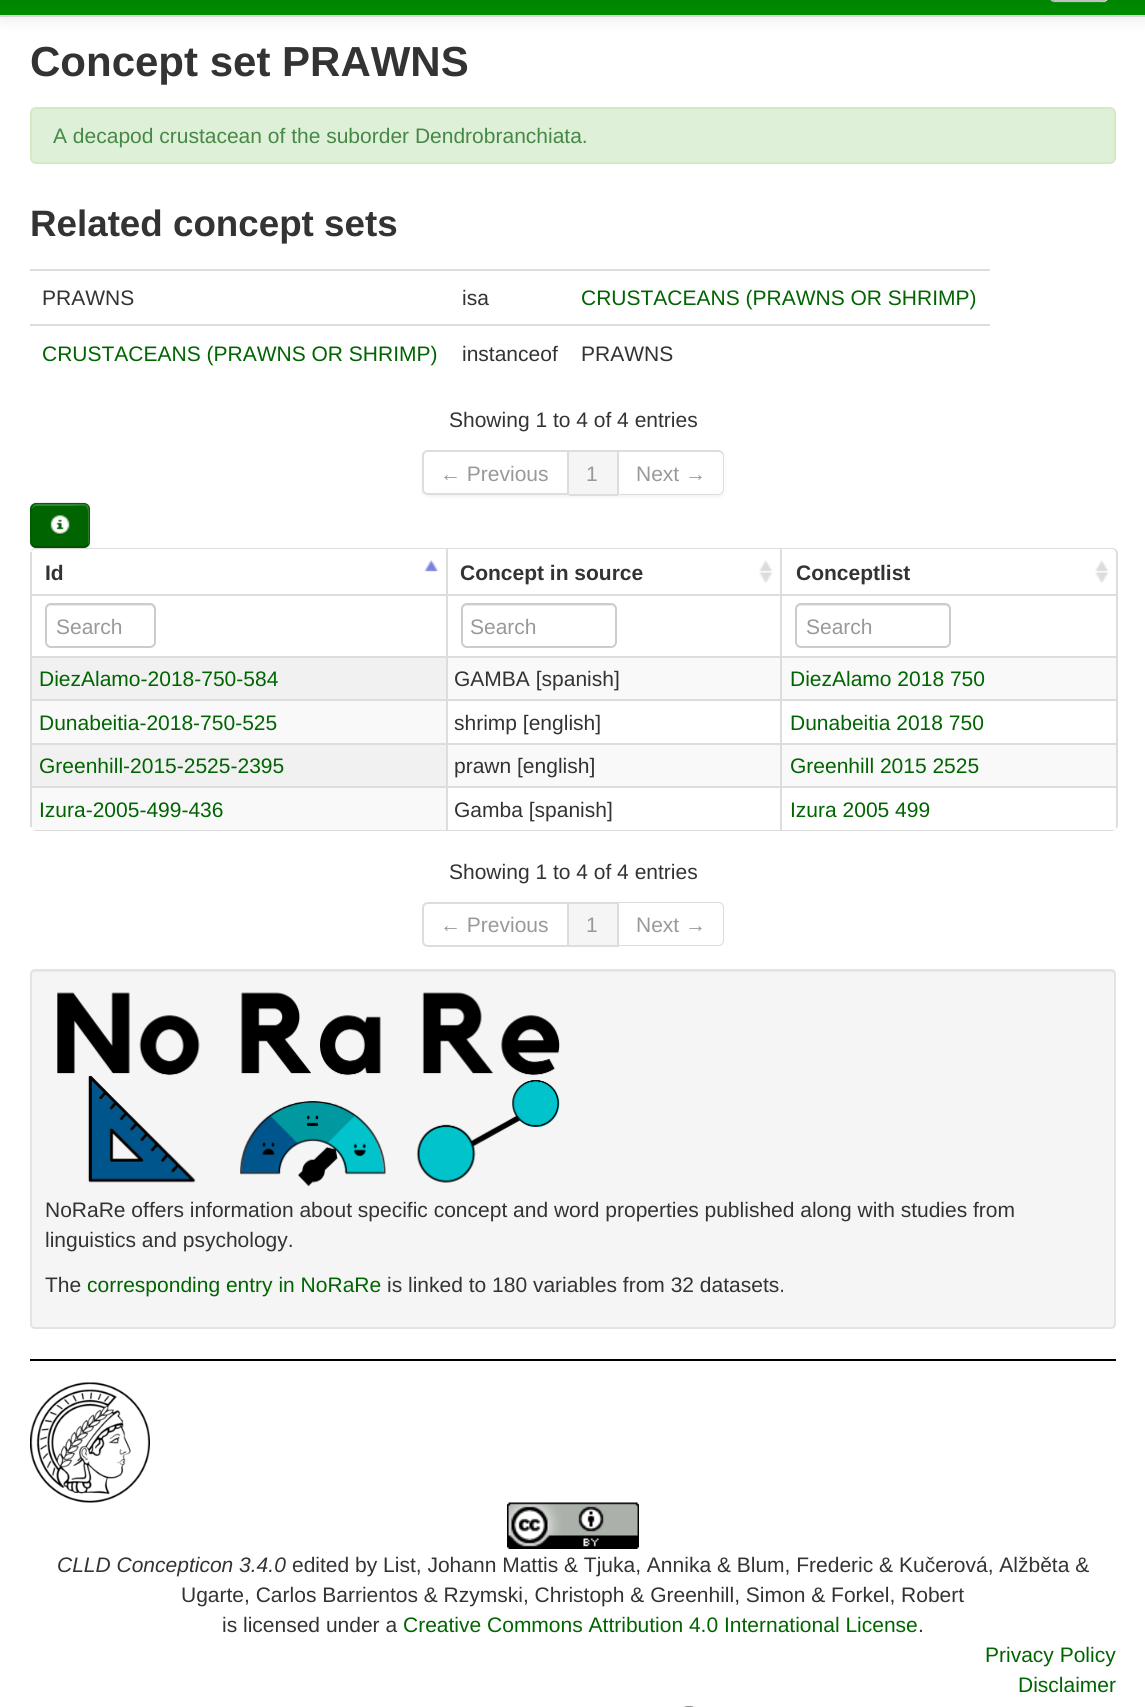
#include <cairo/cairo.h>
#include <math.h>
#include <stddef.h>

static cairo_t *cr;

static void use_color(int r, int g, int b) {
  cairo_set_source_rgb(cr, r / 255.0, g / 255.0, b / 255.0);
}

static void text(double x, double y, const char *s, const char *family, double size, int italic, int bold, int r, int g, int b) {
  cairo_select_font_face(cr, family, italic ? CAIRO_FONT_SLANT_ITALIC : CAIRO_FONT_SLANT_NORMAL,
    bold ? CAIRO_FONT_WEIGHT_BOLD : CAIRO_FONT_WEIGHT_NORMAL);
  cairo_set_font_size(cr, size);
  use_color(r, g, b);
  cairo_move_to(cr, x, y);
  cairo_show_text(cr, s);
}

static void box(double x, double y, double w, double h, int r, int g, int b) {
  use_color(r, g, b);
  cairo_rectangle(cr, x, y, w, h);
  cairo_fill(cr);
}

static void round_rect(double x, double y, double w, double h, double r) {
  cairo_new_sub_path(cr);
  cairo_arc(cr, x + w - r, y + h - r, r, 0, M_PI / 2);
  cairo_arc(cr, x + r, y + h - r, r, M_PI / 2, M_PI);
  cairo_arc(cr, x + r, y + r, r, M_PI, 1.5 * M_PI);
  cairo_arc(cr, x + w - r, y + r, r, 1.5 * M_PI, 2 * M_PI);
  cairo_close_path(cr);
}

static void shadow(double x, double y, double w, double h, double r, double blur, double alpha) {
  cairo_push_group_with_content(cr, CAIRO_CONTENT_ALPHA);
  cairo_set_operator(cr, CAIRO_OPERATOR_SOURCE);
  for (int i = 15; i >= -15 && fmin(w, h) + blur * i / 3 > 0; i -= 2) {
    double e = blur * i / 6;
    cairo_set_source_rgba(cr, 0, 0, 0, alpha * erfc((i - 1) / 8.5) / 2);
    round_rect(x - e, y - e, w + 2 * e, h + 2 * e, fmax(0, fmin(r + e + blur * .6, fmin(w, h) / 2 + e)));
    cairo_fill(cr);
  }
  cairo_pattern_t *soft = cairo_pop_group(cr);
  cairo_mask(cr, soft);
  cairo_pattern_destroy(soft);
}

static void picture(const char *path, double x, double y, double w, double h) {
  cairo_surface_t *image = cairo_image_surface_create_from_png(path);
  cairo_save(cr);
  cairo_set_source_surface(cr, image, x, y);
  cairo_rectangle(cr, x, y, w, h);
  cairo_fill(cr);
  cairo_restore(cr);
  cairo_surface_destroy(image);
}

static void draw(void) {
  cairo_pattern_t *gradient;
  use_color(255, 255, 255);
  cairo_paint(cr);
  use_color(0, 0, 0);
  shadow(0, -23, 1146, 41, 0, 7.5, 0.1);
  gradient = cairo_pattern_create_linear(573, -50, 573, 15);
  cairo_pattern_add_color_stop_rgba(gradient, 0, 0, 0.392, 0, 1);
  cairo_pattern_add_color_stop_rgba(gradient, 1, 0, 0.557, 0, 1);
  cairo_set_source(cr, gradient);
  cairo_pattern_destroy(gradient);
  cairo_rectangle(cr, 0, 0, 1145, 15);
  cairo_fill(cr);
  box(0, 15, 1145, 2, 212, 212, 212);
  use_color(19, 143, 19);
  cairo_new_path(cr);
  cairo_move_to(cr, 1049, -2);
  cairo_curve_to(cr, 1050, 1, 1052, 3, 1055, 3);
  cairo_line_to(cr, 1103, 3);
  cairo_curve_to(cr, 1106, 3, 1109, 0, 1109, -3);
  cairo_line_to(cr, 1109, -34);
  cairo_line_to(cr, 1108, -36);
  cairo_line_to(cr, 1108, -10);
  cairo_curve_to(cr, 1108, 2, 1106, 2, 1094, 2);
  cairo_line_to(cr, 1062, 2);
  cairo_curve_to(cr, 1058, 2, 1051, 3, 1049, -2);
  cairo_close_path(cr);
  cairo_fill(cr);
  use_color(237, 237, 237);
  round_rect(1049, -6, 60, 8, 6);
  cairo_fill(cr);
  cairo_new_path(cr);
  cairo_move_to(cr, 1106, -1);
  cairo_curve_to(cr, 1105, 0, 1104, 0.5, 1102.5, 1);
  cairo_line_to(cr, 1054.5, 1);
  cairo_curve_to(cr, 1053, 1, 1052, 0, 1051, -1);
  cairo_set_source_rgba(cr, 0, 0, 0, 0.25);
  cairo_set_line_width(cr, 1.5);
  cairo_stroke(cr);
  use_color(223, 240, 216);
  round_rect(31, 108, 1084, 55, 5);
  cairo_fill_preserve(cr);
  use_color(214, 233, 198);
  cairo_set_line_width(cr, 2);
  cairo_stroke(cr);
  box(30, 269, 960, 2, 221, 221, 221);
  box(30, 324, 960, 2, 221, 221, 221);
  cairo_save(cr);
  cairo_set_fill_rule(cr, CAIRO_FILL_RULE_EVEN_ODD);
  cairo_new_path(cr);
  cairo_move_to(cr, 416, 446);
  cairo_line_to(cr, 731, 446);
  cairo_line_to(cr, 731, 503);
  cairo_line_to(cr, 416, 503);
  cairo_close_path(cr);
  cairo_move_to(cr, 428, 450);
  cairo_line_to(cr, 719, 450);
  cairo_curve_to(cr, 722.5, 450, 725, 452.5, 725, 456);
  cairo_line_to(cr, 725, 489);
  cairo_curve_to(cr, 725, 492.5, 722.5, 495, 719, 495);
  cairo_line_to(cr, 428, 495);
  cairo_curve_to(cr, 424.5, 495, 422, 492.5, 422, 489);
  cairo_line_to(cr, 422, 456);
  cairo_curve_to(cr, 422, 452.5, 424.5, 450, 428, 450);
  cairo_close_path(cr);
  cairo_clip(cr);
  use_color(0, 0, 0);
  shadow(422, 452, 303, 45, 6, 1.5, 0.05);
  cairo_restore(cr);
  cairo_new_path(cr);
  cairo_move_to(cr, 428, 451);
  cairo_line_to(cr, 568, 451);
  cairo_line_to(cr, 568, 494);
  cairo_line_to(cr, 428, 494);
  cairo_curve_to(cr, 425, 494, 423, 492, 423, 489);
  cairo_line_to(cr, 423, 456);
  cairo_curve_to(cr, 423, 453, 425, 451, 428, 451);
  cairo_close_path(cr);
  cairo_stroke(cr);
  box(569, 452, 48, 42, 245, 245, 245);
  box(569, 450, 49, 2, 221, 221, 221);
  box(617, 450, 2, 45, 221, 221, 221);
  box(569, 494, 49, 2, 221, 221, 221);
  cairo_set_fill_rule(cr, CAIRO_FILL_RULE_EVEN_ODD);
  cairo_new_path(cr);
  cairo_move_to(cr, 618, 450);
  cairo_line_to(cr, 718, 450);
  cairo_curve_to(cr, 722, 450, 724, 453, 724, 456);
  cairo_line_to(cr, 724, 489);
  cairo_curve_to(cr, 724, 492, 722, 495, 718, 495);
  cairo_line_to(cr, 618, 495);
  cairo_close_path(cr);
  cairo_move_to(cr, 618, 452);
  cairo_line_to(cr, 718, 452);
  cairo_curve_to(cr, 721, 452, 723, 454, 723, 456);
  cairo_line_to(cr, 723, 489);
  cairo_curve_to(cr, 723, 491, 721, 494, 718, 494);
  cairo_line_to(cr, 618, 494);
  cairo_close_path(cr);
  cairo_fill(cr);
  cairo_new_path(cr);
  cairo_move_to(cr, 36, 548);
  cairo_line_to(cr, 1112, 548);
  cairo_curve_to(cr, 1115, 548, 1118, 550, 1118, 554);
  cairo_line_to(cr, 1118, 825);
  cairo_curve_to(cr, 1118, 828, 1115, 831, 1112, 831);
  cairo_line_to(cr, 36, 831);
  cairo_curve_to(cr, 33, 831, 30, 828, 30, 825);
  cairo_line_to(cr, 30, 554);
  cairo_curve_to(cr, 30, 550, 33, 548, 36, 548);
  cairo_close_path(cr);
  cairo_move_to(cr, 36, 549);
  cairo_line_to(cr, 1112, 549);
  cairo_curve_to(cr, 1114, 549, 1116, 551, 1116, 554);
  cairo_line_to(cr, 1116, 825);
  cairo_curve_to(cr, 1116, 827, 1114, 830, 1112, 830);
  cairo_line_to(cr, 36, 830);
  cairo_curve_to(cr, 33, 830, 30, 827, 30, 825);
  cairo_line_to(cr, 30, 554);
  cairo_curve_to(cr, 30, 551, 33, 549, 36, 549);
  cairo_close_path(cr);
  cairo_fill(cr);
  box(30, 552, 2, 42, 221, 221, 221);
  use_color(0, 0, 0);
  shadow(30, 504, 60, 45, 6, 1.5, 0.05);
  use_color(0, 100, 0);
  round_rect(30, 503, 60, 45, 6);
  cairo_fill(cr);
  use_color(51, 131, 51);
  cairo_set_fill_rule(cr, CAIRO_FILL_RULE_WINDING);
  cairo_new_path(cr);
  cairo_move_to(cr, 36, 506);
  cairo_line_to(cr, 68, 506);
  cairo_curve_to(cr, 89, 506, 88, 502, 88, 521);
  cairo_line_to(cr, 88, 544);
  cairo_curve_to(cr, 90, 542, 89, 538, 89, 536);
  cairo_line_to(cr, 89, 525);
  cairo_curve_to(cr, 89, 501, 92, 504, 68, 504);
  cairo_line_to(cr, 45, 504);
  cairo_curve_to(cr, 39, 504, 32, 502, 32, 510);
  cairo_curve_to(cr, 32, 508, 34, 506, 36, 506);
  cairo_close_path(cr);
  cairo_fill(cr);
  cairo_new_path(cr);
  cairo_move_to(cr, 87.5, 545);
  cairo_curve_to(cr, 86.5, 546, 85.5, 547, 84, 547);
  cairo_line_to(cr, 36, 547);
  cairo_curve_to(cr, 34.5, 547, 33.5, 546, 32.5, 545);
  cairo_set_source_rgba(cr, 0, 0, 0, 0.25);
  cairo_set_line_width(cr, 1.5);
  cairo_stroke(cr);
  cairo_new_path(cr);
  cairo_move_to(cr, 32.5, 545);
  cairo_curve_to(cr, 31.5, 544, 31, 543, 31, 541.5);
  cairo_line_to(cr, 31, 508.5);
  cairo_curve_to(cr, 31, 507, 31.5, 506, 32.5, 505);
  cairo_curve_to(cr, 33.5, 504, 34.5, 503, 36, 503);
  cairo_line_to(cr, 84, 503);
  cairo_curve_to(cr, 85.5, 503, 86.5, 504, 87.5, 505);
  cairo_curve_to(cr, 88.5, 506, 89, 507, 89, 508.5);
  cairo_line_to(cr, 89, 541.5);
  cairo_curve_to(cr, 89, 543, 88.5, 544, 87.5, 545);
  cairo_set_source_rgba(cr, 0, 0, 0, 0.1);
  cairo_stroke(cr);
  picture("img_01.png", 50, 515, 20, 20);
  picture("img_02.png", 424, 560, 15, 12);
  picture("img_03.png", 759, 560, 14, 23);
  box(446, 549, 2, 45, 221, 221, 221);
  picture("img_04.png", 1095, 560, 14, 23);
  box(780, 549, 2, 45, 221, 221, 221);
  box(30, 594, 1086, 2, 221, 221, 221);
  box(30, 594, 2, 62, 221, 221, 221);
  use_color(236, 236, 236);
  cairo_new_path(cr);
  cairo_move_to(cr, 51, 606);
  cairo_line_to(cr, 150, 606);
  cairo_curve_to(cr, 155, 606, 154, 613, 154, 616);
  cairo_line_to(cr, 154, 645);
  cairo_curve_to(cr, 155, 644, 155, 643, 155, 642);
  cairo_line_to(cr, 155, 610);
  cairo_curve_to(cr, 155, 607, 153, 605, 150, 605);
  cairo_line_to(cr, 52, 605);
  cairo_curve_to(cr, 50, 605, 49, 606, 48, 607);
  cairo_close_path(cr);
  cairo_fill(cr);
  round_rect(46, 604, 109, 43, 5);
  use_color(204, 204, 204);
  cairo_set_line_width(cr, 2);
  cairo_stroke(cr);
  box(446, 594, 2, 62, 221, 221, 221);
  use_color(236, 236, 236);
  cairo_new_path(cr);
  cairo_move_to(cr, 466, 606);
  cairo_line_to(cr, 610, 606);
  cairo_curve_to(cr, 613, 606, 615, 608, 615, 610);
  cairo_curve_to(cr, 615, 607, 613, 605, 610, 605);
  cairo_line_to(cr, 467, 605);
  cairo_curve_to(cr, 464, 605, 462, 607, 462, 610);
  cairo_curve_to(cr, 462, 608, 464, 606, 466, 606);
  cairo_close_path(cr);
  cairo_fill(cr);
  round_rect(462, 604, 154, 43, 5);
  use_color(204, 204, 204);
  cairo_stroke(cr);
  box(780, 594, 2, 62, 221, 221, 221);
  use_color(236, 236, 236);
  cairo_new_path(cr);
  cairo_move_to(cr, 801, 606);
  cairo_line_to(cr, 945, 606);
  cairo_curve_to(cr, 947, 606, 950, 608, 950, 610);
  cairo_curve_to(cr, 950, 607, 948, 605, 945, 605);
  cairo_line_to(cr, 802, 605);
  cairo_curve_to(cr, 800, 605, 799, 606, 798, 607);
  cairo_close_path(cr);
  cairo_fill(cr);
  round_rect(796, 604, 154, 43, 5);
  use_color(204, 204, 204);
  cairo_stroke(cr);
  box(448, 658, 668, 41, 249, 249, 249);
  box(32, 658, 414, 41, 241, 241, 241);
  box(30, 656, 1086, 2, 221, 221, 221);
  box(30, 656, 2, 43, 221, 221, 221);
  box(446, 656, 2, 43, 221, 221, 221);
  box(780, 656, 2, 43, 221, 221, 221);
  box(32, 701, 414, 42, 249, 249, 249);
  box(30, 699, 1086, 2, 221, 221, 221);
  box(30, 699, 2, 44, 221, 221, 221);
  box(446, 699, 2, 44, 221, 221, 221);
  box(780, 699, 2, 44, 221, 221, 221);
  box(448, 745, 668, 41, 249, 249, 249);
  box(32, 745, 414, 41, 241, 241, 241);
  box(30, 743, 1086, 2, 221, 221, 221);
  box(30, 743, 2, 43, 221, 221, 221);
  box(446, 743, 2, 43, 221, 221, 221);
  box(780, 743, 2, 43, 221, 221, 221);
  box(30, 826, 1086, 4, 255, 255, 255);
  use_color(249, 249, 249);
  cairo_new_path(cr);
  cairo_move_to(cr, 30, 786);
  cairo_line_to(cr, 446, 786);
  cairo_line_to(cr, 446, 830);
  cairo_line_to(cr, 36, 830);
  cairo_curve_to(cr, 32.5, 830, 30, 827.5, 30, 824);
  cairo_close_path(cr);
  cairo_fill(cr);
  box(30, 786, 1086, 2, 221, 221, 221);
  box(30, 786, 2, 41, 221, 221, 221);
  box(446, 786, 2, 44, 221, 221, 221);
  box(780, 786, 2, 44, 221, 221, 221);
  cairo_new_path(cr);
  cairo_move_to(cr, 428, 903);
  cairo_line_to(cr, 568, 903);
  cairo_line_to(cr, 568, 946);
  cairo_line_to(cr, 428, 946);
  cairo_curve_to(cr, 425, 946, 423, 944, 423, 941);
  cairo_line_to(cr, 423, 908);
  cairo_curve_to(cr, 423, 905, 425, 903, 428, 903);
  cairo_close_path(cr);
  cairo_stroke(cr);
  box(569, 904, 48, 41, 245, 245, 245);
  box(569, 902, 49, 2, 221, 221, 221);
  box(617, 902, 2, 45, 221, 221, 221);
  box(569, 945, 49, 2, 221, 221, 221);
  cairo_set_fill_rule(cr, CAIRO_FILL_RULE_EVEN_ODD);
  cairo_new_path(cr);
  cairo_move_to(cr, 618, 902);
  cairo_line_to(cr, 718, 902);
  cairo_curve_to(cr, 722, 902, 724, 904, 724, 908);
  cairo_line_to(cr, 724, 940);
  cairo_curve_to(cr, 724, 944, 722, 946, 718, 946);
  cairo_line_to(cr, 618, 946);
  cairo_close_path(cr);
  cairo_move_to(cr, 618, 903);
  cairo_line_to(cr, 718, 903);
  cairo_curve_to(cr, 721, 903, 723, 905, 723, 908);
  cairo_line_to(cr, 723, 940);
  cairo_curve_to(cr, 723, 943, 721, 945, 718, 945);
  cairo_line_to(cr, 618, 945);
  cairo_close_path(cr);
  cairo_fill(cr);
  use_color(245, 245, 245);
  round_rect(30, 969, 1086, 360, 5);
  cairo_fill(cr);
  use_color(233, 233, 233);
  cairo_set_fill_rule(cr, CAIRO_FILL_RULE_WINDING);
  cairo_new_path(cr);
  cairo_move_to(cr, 34, 972);
  cairo_line_to(cr, 1112, 972);
  cairo_curve_to(cr, 1113, 972, 1114, 973, 1114, 975);
  cairo_line_to(cr, 1114, 1327);
  cairo_curve_to(cr, 1115, 1327, 1115, 1326, 1115, 1325);
  cairo_line_to(cr, 1115, 974);
  cairo_curve_to(cr, 1115, 972, 1114, 971, 1112, 971);
  cairo_line_to(cr, 35, 971);
  cairo_curve_to(cr, 33, 971, 32, 972, 32, 974);
  cairo_line_to(cr, 32, 975);
  cairo_curve_to(cr, 32, 973, 33, 972, 34, 972);
  cairo_close_path(cr);
  cairo_fill(cr);
  round_rect(31, 970, 1084, 358, 4);
  use_color(227, 227, 227);
  cairo_stroke(cr);
  picture("img_05.png", 57, 992, 503, 195);
  box(30, 1359, 1086, 2, 0, 0, 0);
  picture("img_06.png", 30, 1382, 120, 121);
  picture("img_07.png", 507, 1502, 132, 47);
  picture("img_08.png", 684, 1706, 12, 1);
  text(30, 76, "Concept set PRAWNS", "Liberation Sans", 42, 0, 1, 51, 51, 51);
  text(53, 143, "A decapod crustacean of the suborder Dendrobranchiata.", "Liberation Sans", 21, 0, 0, 70, 136, 71);
  text(30, 236, "Related concept sets", "Liberation Sans", 36.75, 0, 1, 51, 51, 51);
  text(42, 305, "PRAWNS", "Liberation Sans", 21, 0, 0, 51, 51, 51);
  text(462, 305, "isa", "Liberation Sans", 21, 0, 0, 51, 51, 51);
  text(581, 305, "CRUSTACEANS (PRAWNS OR SHRIMP)", "Liberation Sans", 21, 0, 0, 0, 100, 0);
  text(42, 361, "CRUSTACEANS (PRAWNS OR SHRIMP)", "Liberation Sans", 21, 0, 0, 0, 100, 0);
  text(462, 361, "instanceof", "Liberation Sans", 21, 0, 0, 51, 51, 51);
  text(581, 361, "PRAWNS", "Liberation Sans", 21, 0, 0, 51, 51, 51);
  text(449, 427, "Showing 1 to 4 of 4 entries", "Liberation Sans", 21, 0, 0, 51, 51, 51);
  text(440, 481, "← Previous", "Liberation Sans", 21, 0, 0, 153, 153, 153);
  text(586, 481, "1", "Liberation Sans", 21, 0, 0, 153, 153, 153);
  text(636, 481, "Next →", "Liberation Sans", 21, 0, 0, 153, 153, 153);
  text(45, 580, "Id", "Liberation Sans", 21, 0, 1, 51, 51, 51);
  text(460, 580, "Concept in source", "Liberation Sans", 21, 0, 1, 51, 51, 51);
  text(796, 580, "Conceptlist", "Liberation Sans", 21, 0, 1, 51, 51, 51);
  text(56, 634, "Search", "Liberation Sans", 21, 0, 0, 153, 153, 153);
  text(470, 634, "Search", "Liberation Sans", 21, 0, 0, 153, 153, 153);
  text(806, 634, "Search", "Liberation Sans", 21, 0, 0, 153, 153, 153);
  text(39, 686, "DiezAlamo-2018-750-584", "Liberation Sans", 21, 0, 0, 0, 100, 0);
  text(454, 686, "GAMBA [spanish]", "Liberation Sans", 21, 0, 0, 51, 51, 51);
  text(790, 686, "DiezAlamo 2018 750", "Liberation Sans", 21, 0, 0, 0, 100, 0);
  text(39, 730, "Dunabeitia-2018-750-525", "Liberation Sans", 21, 0, 0, 0, 100, 0);
  text(454, 730, "shrimp [english]", "Liberation Sans", 21, 0, 0, 51, 51, 51);
  text(790, 730, "Dunabeitia 2018 750", "Liberation Sans", 21, 0, 0, 0, 100, 0);
  text(39, 773, "Greenhill-2015-2525-2395", "Liberation Sans", 21, 0, 0, 0, 100, 0);
  text(454, 773, "prawn [english]", "Liberation Sans", 21, 0, 0, 51, 51, 51);
  text(790, 773, "Greenhill 2015 2525", "Liberation Sans", 21, 0, 0, 0, 100, 0);
  text(39, 817, "Izura-2005-499-436", "Liberation Sans", 21, 0, 0, 0, 100, 0);
  text(454, 817, "Gamba [spanish]", "Liberation Sans", 21, 0, 0, 51, 51, 51);
  text(790, 817, "Izura 2005 499", "Liberation Sans", 21, 0, 0, 0, 100, 0);
  text(449, 879, "Showing 1 to 4 of 4 entries", "Liberation Sans", 21, 0, 0, 51, 51, 51);
  text(440, 932, "← Previous", "Liberation Sans", 21, 0, 0, 153, 153, 153);
  text(586, 932, "1", "Liberation Sans", 21, 0, 0, 153, 153, 153);
  text(636, 932, "Next →", "Liberation Sans", 21, 0, 0, 153, 153, 153);
  text(45, 1217, "NoRaRe offers information about specific concept and word properties published along with studies from", "Liberation Sans", 21, 0, 0, 51, 51, 51);
  text(45, 1247, "linguistics and psychology.", "Liberation Sans", 21, 0, 0, 51, 51, 51);
  text(45, 1292, "The", "Liberation Sans", 21, 0, 0, 51, 51, 51);
  text(87, 1292, "corresponding entry in NoRaRe", "Liberation Sans", 21, 0, 0, 0, 100, 0);
  text(387, 1292, "is linked to 180 variables from 32 datasets.", "Liberation Sans", 21, 0, 0, 51, 51, 51);
  text(57, 1572, "CLLD Concepticon 3.4.0", "Liberation Sans", 21, 1, 0, 51, 51, 51);
  text(292, 1572, "edited by List, Johann Mattis & Tjuka, Annika & Blum, Frederic & Kučerová, Alžběta &", "Liberation Sans", 21, 0, 0, 51, 51, 51);
  text(181, 1602, "Ugarte, Carlos Barrientos & Rzymski, Christoph & Greenhill, Simon & Forkel, Robert", "Liberation Sans", 21, 0, 0, 51, 51, 51);
  text(222, 1632, "is licensed under a", "Liberation Sans", 21, 0, 0, 51, 51, 51);
  text(403, 1632, "Creative Commons Attribution 4.0 International License", "Liberation Sans", 21, 0, 0, 0, 100, 0);
  text(918, 1632, ".", "Liberation Sans", 21, 0, 0, 51, 51, 51);
  text(985, 1662, "Privacy Policy", "Liberation Sans", 21, 0, 0, 0, 100, 0);
  text(1018, 1692, "Disclaimer", "Liberation Sans", 21, 0, 0, 0, 100, 0);
}

int main(void) {
  cairo_surface_t *surface = cairo_image_surface_create(CAIRO_FORMAT_RGB24, 1145, 1707);
  cr = cairo_create(surface);
  cairo_font_options_t *options = cairo_font_options_create();
  cairo_font_options_set_hint_metrics(options, CAIRO_HINT_METRICS_OFF);
  cairo_font_options_set_hint_style(options, CAIRO_HINT_STYLE_NONE);
  cairo_set_font_options(cr, options);
  cairo_set_miter_limit(cr, 4);
  draw();
  cairo_surface_write_to_png(surface, "out.png");
  cairo_font_options_destroy(options);
  cairo_destroy(cr);
  cairo_surface_destroy(surface);
  return 0;
}
